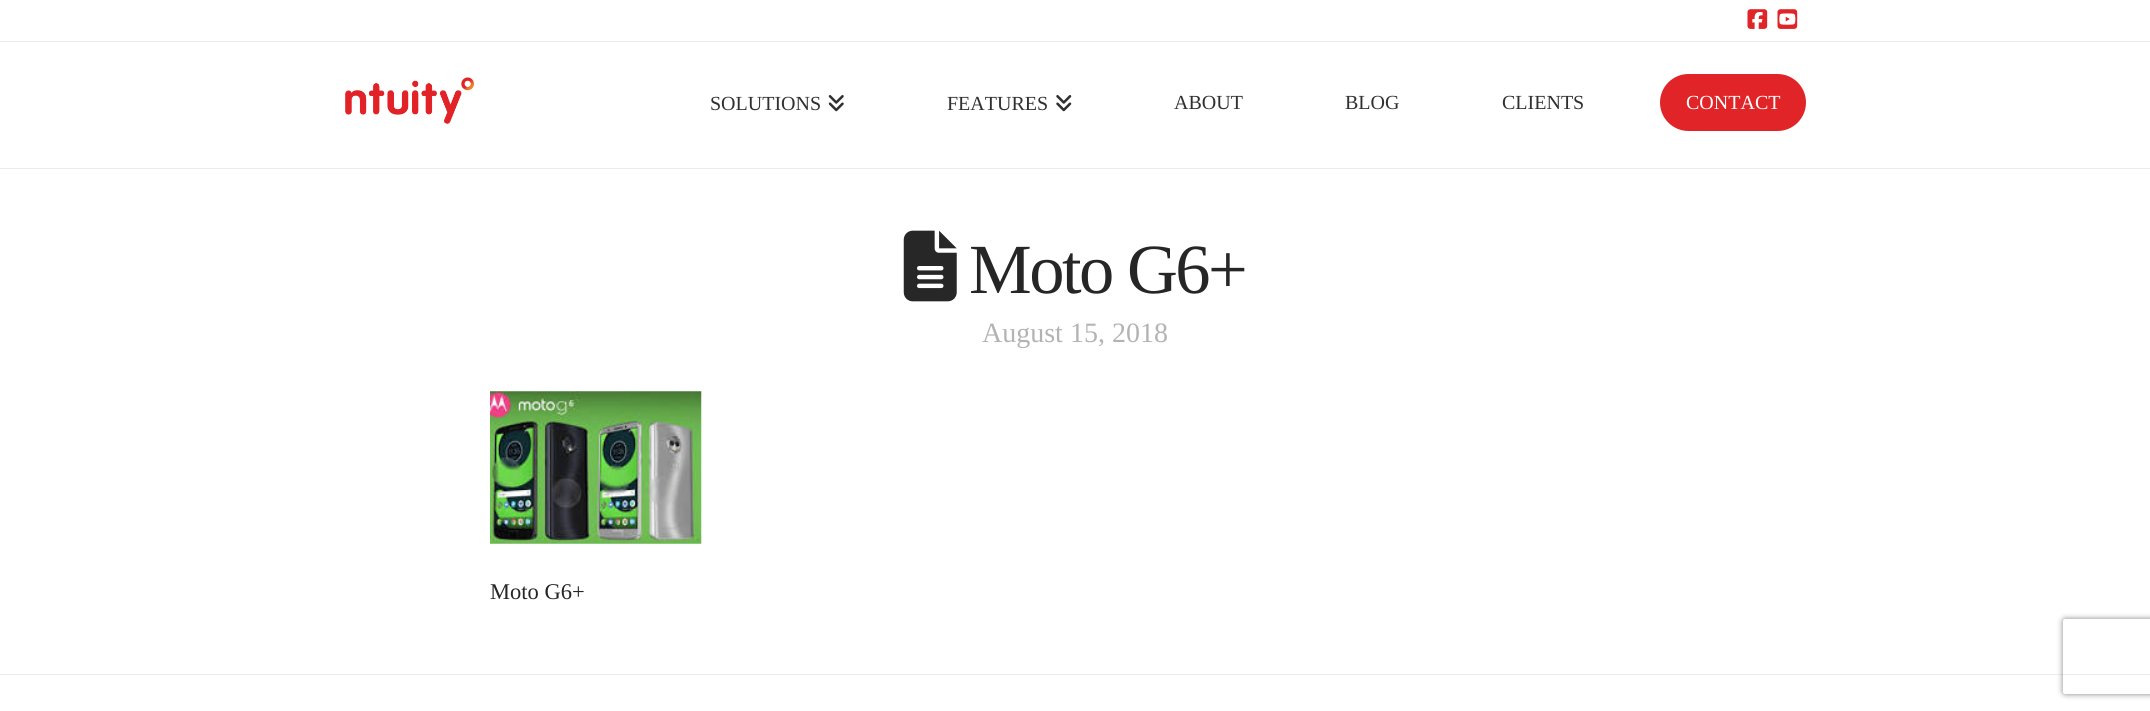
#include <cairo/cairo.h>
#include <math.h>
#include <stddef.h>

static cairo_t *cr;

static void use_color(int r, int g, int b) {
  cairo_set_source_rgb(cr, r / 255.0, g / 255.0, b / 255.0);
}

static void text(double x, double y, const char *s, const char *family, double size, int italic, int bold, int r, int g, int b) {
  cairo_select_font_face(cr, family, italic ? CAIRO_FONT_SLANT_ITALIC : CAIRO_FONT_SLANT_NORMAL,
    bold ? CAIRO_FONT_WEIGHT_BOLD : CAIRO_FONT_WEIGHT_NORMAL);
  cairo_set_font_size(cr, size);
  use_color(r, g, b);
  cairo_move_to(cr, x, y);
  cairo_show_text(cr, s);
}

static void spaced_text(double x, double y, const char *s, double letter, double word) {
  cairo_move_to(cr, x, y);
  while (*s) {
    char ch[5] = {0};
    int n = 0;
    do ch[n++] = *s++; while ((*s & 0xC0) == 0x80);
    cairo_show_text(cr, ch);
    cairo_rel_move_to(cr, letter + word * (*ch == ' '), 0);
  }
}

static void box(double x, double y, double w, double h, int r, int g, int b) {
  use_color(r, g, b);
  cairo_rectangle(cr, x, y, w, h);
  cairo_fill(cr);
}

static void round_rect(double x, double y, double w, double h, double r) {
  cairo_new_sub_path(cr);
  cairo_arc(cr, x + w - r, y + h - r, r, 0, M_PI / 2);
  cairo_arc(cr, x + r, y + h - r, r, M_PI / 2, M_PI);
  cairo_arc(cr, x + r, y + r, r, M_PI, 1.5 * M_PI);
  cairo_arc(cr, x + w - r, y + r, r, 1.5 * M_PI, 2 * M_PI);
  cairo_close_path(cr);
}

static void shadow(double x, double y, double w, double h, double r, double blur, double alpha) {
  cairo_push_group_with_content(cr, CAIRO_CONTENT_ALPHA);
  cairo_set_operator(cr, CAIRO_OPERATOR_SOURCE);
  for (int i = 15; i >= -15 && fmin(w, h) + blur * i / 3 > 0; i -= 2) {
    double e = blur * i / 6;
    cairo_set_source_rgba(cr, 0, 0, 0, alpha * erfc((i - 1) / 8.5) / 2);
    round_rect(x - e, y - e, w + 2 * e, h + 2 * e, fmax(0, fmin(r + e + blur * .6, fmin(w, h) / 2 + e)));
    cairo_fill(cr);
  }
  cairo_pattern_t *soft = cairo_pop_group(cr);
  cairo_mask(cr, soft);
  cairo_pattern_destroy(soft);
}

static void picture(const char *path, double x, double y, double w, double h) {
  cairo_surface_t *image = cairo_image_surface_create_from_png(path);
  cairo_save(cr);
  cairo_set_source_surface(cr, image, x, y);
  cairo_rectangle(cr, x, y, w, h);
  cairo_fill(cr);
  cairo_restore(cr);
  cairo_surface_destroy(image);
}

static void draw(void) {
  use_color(255, 255, 255);
  cairo_paint(cr);
  box(0, 41, 2150, 1, 236, 236, 236);
  picture("img_01.png", 1747, 9, 21, 20);
  picture("img_02.png", 1777, 9, 21, 20);
  box(0, 168, 2150, 1, 236, 236, 236);
  picture("img_03.png", 345, 77, 129, 47);
  picture("img_04.png", 828, 95, 16, 17);
  picture("img_05.png", 1056, 95, 16, 17);
  use_color(224, 36, 40);
  round_rect(1660, 74, 146, 57, 28.5);
  cairo_fill(cr);
  box(0, 674, 2150, 1, 236, 236, 236);
  picture("img_06.png", 903, 230, 54, 72);
  picture("img_07.png", 490, 391, 212, 153);
  cairo_save(cr);
  cairo_set_fill_rule(cr, CAIRO_FILL_RULE_EVEN_ODD);
  cairo_new_path(cr);
  cairo_move_to(cr, 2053, 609);
  cairo_line_to(cr, 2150, 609);
  cairo_line_to(cr, 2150, 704);
  cairo_line_to(cr, 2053, 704);
  cairo_close_path(cr);
  cairo_move_to(cr, 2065.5, 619);
  cairo_line_to(cr, 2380.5, 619);
  cairo_curve_to(cr, 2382, 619, 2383, 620, 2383, 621.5);
  cairo_line_to(cr, 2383, 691.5);
  cairo_curve_to(cr, 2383, 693, 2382, 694, 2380.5, 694);
  cairo_line_to(cr, 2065.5, 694);
  cairo_curve_to(cr, 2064, 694, 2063, 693, 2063, 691.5);
  cairo_line_to(cr, 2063, 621.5);
  cairo_curve_to(cr, 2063, 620, 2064, 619, 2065.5, 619);
  cairo_close_path(cr);
  cairo_clip(cr);
  use_color(128, 128, 128);
  shadow(2063, 619, 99, 75, 2.5, 3, 1);
  cairo_restore(cr);
  text(710, 110, "SOLUTIONS", "Liberation Serif", 20, 0, 0, 48, 48, 48);
  text(947, 110, "FEATURES", "Liberation Serif", 20, 0, 0, 48, 48, 48);
  text(1174, 109, "ABOUT", "Liberation Serif", 20, 0, 0, 48, 48, 48);
  text(1345, 109, "BLOG", "Liberation Serif", 20, 0, 0, 48, 48, 48);
  text(1502, 109, "CLIENTS", "Liberation Serif", 20, 0, 0, 48, 48, 48);
  text(1686, 109, "CONTACT", "Liberation Serif", 20, 0, 0, 255, 255, 255);
  cairo_set_font_size(cr, 70.5);
  use_color(38, 38, 38);
  spaced_text(969, 293, "Moto G6+", -2.5, 0);
  text(982, 342, "August 15, 2018", "Liberation Serif", 28, 0, 0, 179, 179, 179);
  text(490, 599, "Moto G6+", "Liberation Serif", 22.5, 0, 0, 38, 38, 38);
}

int main(void) {
  cairo_surface_t *surface = cairo_image_surface_create(CAIRO_FORMAT_RGB24, 2150, 711);
  cr = cairo_create(surface);
  cairo_font_options_t *options = cairo_font_options_create();
  cairo_font_options_set_hint_metrics(options, CAIRO_HINT_METRICS_OFF);
  cairo_font_options_set_hint_style(options, CAIRO_HINT_STYLE_NONE);
  cairo_set_font_options(cr, options);
  cairo_set_miter_limit(cr, 4);
  draw();
  cairo_surface_write_to_png(surface, "out.png");
  cairo_font_options_destroy(options);
  cairo_destroy(cr);
  cairo_surface_destroy(surface);
  return 0;
}
